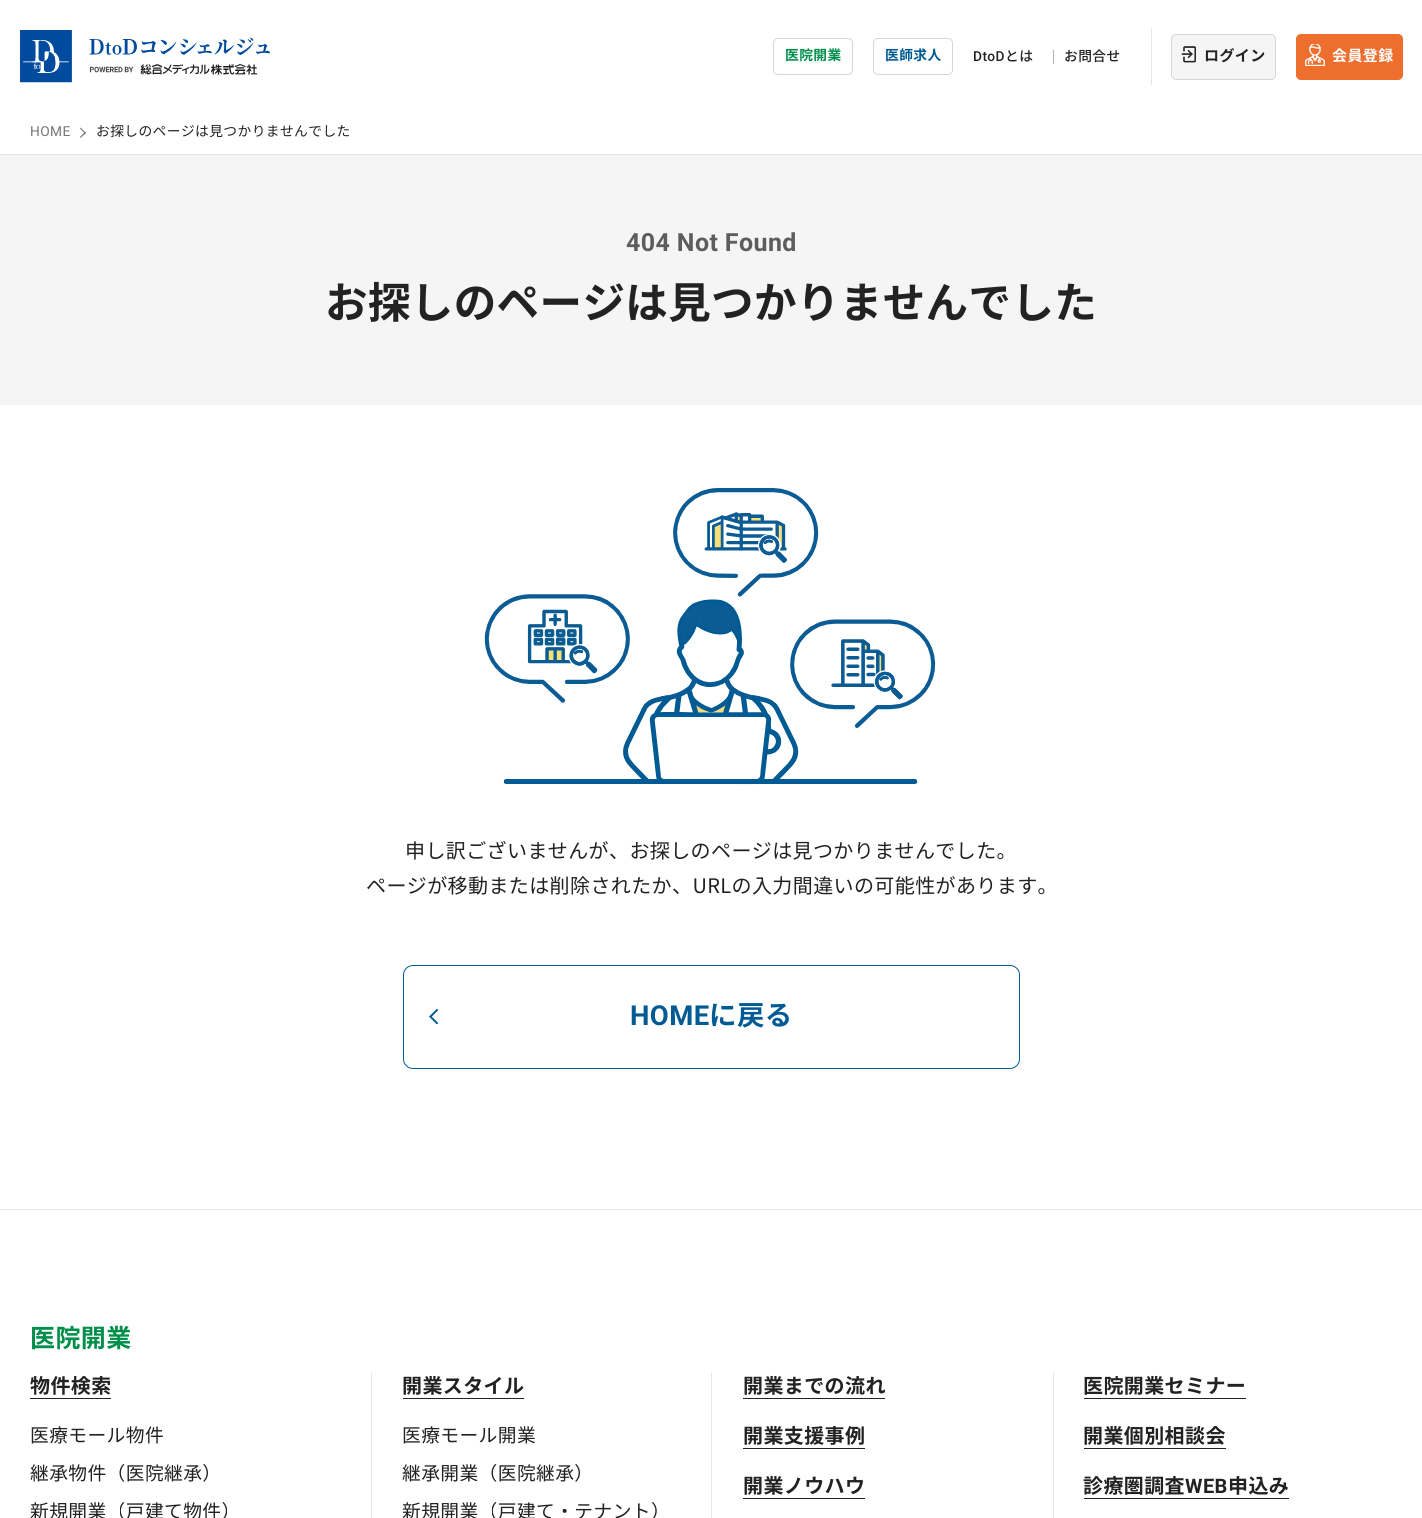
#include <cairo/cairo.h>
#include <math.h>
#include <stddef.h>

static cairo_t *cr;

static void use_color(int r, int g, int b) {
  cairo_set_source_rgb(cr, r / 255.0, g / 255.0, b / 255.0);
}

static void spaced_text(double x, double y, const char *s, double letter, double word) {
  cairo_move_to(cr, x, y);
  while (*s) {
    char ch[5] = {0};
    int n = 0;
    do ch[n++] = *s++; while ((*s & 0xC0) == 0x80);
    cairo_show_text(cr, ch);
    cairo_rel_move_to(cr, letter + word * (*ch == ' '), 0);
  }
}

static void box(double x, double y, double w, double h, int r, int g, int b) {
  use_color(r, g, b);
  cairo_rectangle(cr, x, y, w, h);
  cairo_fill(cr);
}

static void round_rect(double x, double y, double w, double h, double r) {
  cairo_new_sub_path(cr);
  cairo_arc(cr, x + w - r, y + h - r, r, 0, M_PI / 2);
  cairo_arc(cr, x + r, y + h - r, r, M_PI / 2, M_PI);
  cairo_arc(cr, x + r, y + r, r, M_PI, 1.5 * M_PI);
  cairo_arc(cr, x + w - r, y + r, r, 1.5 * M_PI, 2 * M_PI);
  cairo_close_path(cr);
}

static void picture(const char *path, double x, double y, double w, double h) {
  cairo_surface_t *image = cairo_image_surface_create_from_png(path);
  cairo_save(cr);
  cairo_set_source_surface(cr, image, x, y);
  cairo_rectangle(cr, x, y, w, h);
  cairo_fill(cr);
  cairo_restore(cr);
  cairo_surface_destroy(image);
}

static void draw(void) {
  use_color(255, 255, 255);
  cairo_paint(cr);
  picture("img_01.png", 20, 30, 250, 53);
  round_rect(773.5, 38.5, 79, 36, 4.5);
  use_color(214, 214, 214);
  cairo_set_line_width(cr, 1);
  cairo_stroke(cr);
  round_rect(873.5, 38.5, 79, 36, 4.5);
  cairo_stroke(cr);
  box(1053, 50, 1, 14, 178, 178, 178);
  box(1151, 28, 1, 57, 230, 230, 230);
  use_color(245, 245, 245);
  round_rect(1171.5, 34.5, 104, 45, 4.5);
  cairo_fill_preserve(cr);
  use_color(214, 214, 214);
  cairo_stroke(cr);
  picture("img_02.png", 1181, 46, 15, 17);
  use_color(238, 110, 45);
  round_rect(1296.5, 34.5, 106, 45, 4.5);
  cairo_fill_preserve(cr);
  cairo_stroke(cr);
  picture("img_03.png", 1305, 44, 20, 22);
  box(0, 154, 1422, 1, 230, 230, 230);
  use_color(117, 117, 117);
  cairo_new_path(cr);
  cairo_move_to(cr, 80.5, 127.5);
  cairo_line_to(cr, 86, 133);
  cairo_line_to(cr, 85, 133.5);
  cairo_line_to(cr, 80, 128.5);
  cairo_close_path(cr);
  cairo_fill(cr);
  cairo_new_path(cr);
  cairo_move_to(cr, 85, 132);
  cairo_line_to(cr, 86, 133);
  cairo_line_to(cr, 80.5, 138);
  cairo_line_to(cr, 80, 137);
  cairo_close_path(cr);
  cairo_fill(cr);
  box(0, 155, 1422, 250, 245, 245, 245);
  picture("img_04.png", 484, 488, 452, 297);
  round_rect(403.5, 965.5, 616, 103, 9.5);
  use_color(0, 91, 148);
  cairo_stroke(cr);
  picture("img_05.png", 429, 1009, 10, 15);
  box(0, 1209, 1422, 1, 230, 230, 230);
  box(30, 1398, 81, 1, 34, 34, 34);
  box(371, 1373, 1, 145, 230, 230, 230);
  box(403, 1398, 121, 1, 34, 34, 34);
  box(711, 1373, 1, 145, 230, 230, 230);
  box(743, 1398, 142, 1, 34, 34, 34);
  box(743, 1448, 122, 1, 34, 34, 34);
  box(743, 1498, 122, 1, 34, 34, 34);
  box(1053, 1373, 1, 145, 230, 230, 230);
  box(1084, 1398, 162, 1, 34, 34, 34);
  box(1084, 1448, 142, 1, 34, 34, 34);
  box(1084, 1498, 205, 1, 34, 34, 34);
  cairo_select_font_face(cr, "Noto Sans JP", CAIRO_FONT_SLANT_NORMAL, CAIRO_FONT_WEIGHT_BOLD);
  cairo_set_font_size(cr, 13.75);
  use_color(0, 143, 75);
  spaced_text(785, 60, "医院開業", 0.4, 0);
  use_color(0, 91, 148);
  spaced_text(885, 60, "医師求人", 0.4, 0);
  cairo_select_font_face(cr, "Roboto Medium", CAIRO_FONT_SLANT_NORMAL, CAIRO_FONT_WEIGHT_NORMAL);
  use_color(34, 34, 34);
  spaced_text(973, 61, "DtoD", 0.4, 0);
  cairo_select_font_face(cr, "Noto Sans JP Medium", CAIRO_FONT_SLANT_NORMAL, CAIRO_FONT_WEIGHT_NORMAL);
  spaced_text(1005, 61, "とは", 0.4, 0);
  spaced_text(1064, 61, "お問合せ", 0.4, 0);
  cairo_select_font_face(cr, "Noto Sans JP", CAIRO_FONT_SLANT_NORMAL, CAIRO_FONT_WEIGHT_BOLD);
  cairo_set_font_size(cr, 15);
  spaced_text(1204, 61, "ログイン", 0.4, 0);
  use_color(255, 255, 255);
  spaced_text(1332, 61, "会員登録", 0.4, 0);
  cairo_select_font_face(cr, "Roboto", CAIRO_FONT_SLANT_NORMAL, CAIRO_FONT_WEIGHT_NORMAL);
  cairo_set_font_size(cr, 13.75);
  use_color(117, 117, 117);
  spaced_text(30, 136, "HOME", 0.4, 0);
  cairo_select_font_face(cr, "Noto Sans JP", CAIRO_FONT_SLANT_NORMAL, CAIRO_FONT_WEIGHT_NORMAL);
  use_color(34, 34, 34);
  spaced_text(96, 136, "お探しのページは見つかりませんでした", 0.4, 0);
  cairo_select_font_face(cr, "Roboto", CAIRO_FONT_SLANT_NORMAL, CAIRO_FONT_WEIGHT_BOLD);
  cairo_set_font_size(cr, 25);
  use_color(93, 93, 93);
  spaced_text(626, 251, "404 Not Found", 0.4, 0);
  cairo_select_font_face(cr, "Noto Sans JP", CAIRO_FONT_SLANT_NORMAL, CAIRO_FONT_WEIGHT_BOLD);
  cairo_set_font_size(cr, 42.5);
  use_color(34, 34, 34);
  spaced_text(325, 318, "お探しのページは見つかりませんでした", 0.4, 0);
  cairo_select_font_face(cr, "Noto Sans JP", CAIRO_FONT_SLANT_NORMAL, CAIRO_FONT_WEIGHT_NORMAL);
  cairo_set_font_size(cr, 20);
  spaced_text(405, 858, "申し訳ございませんが、お探しのページは見つかりませんでした。", 0.4, 0);
  spaced_text(366, 893, "ページが移動または削除されたか、URLの入力間違いの可能性があります。", 0.4, 0);
  cairo_select_font_face(cr, "Roboto", CAIRO_FONT_SLANT_NORMAL, CAIRO_FONT_WEIGHT_BOLD);
  cairo_set_font_size(cr, 27.5);
  use_color(0, 91, 148);
  spaced_text(630, 1025, "HOME", 0.4, 0);
  cairo_select_font_face(cr, "Noto Sans JP", CAIRO_FONT_SLANT_NORMAL, CAIRO_FONT_WEIGHT_BOLD);
  spaced_text(709, 1025, "に戻る", 0.4, 0);
  cairo_set_font_size(cr, 25);
  use_color(0, 143, 75);
  spaced_text(30, 1347, "医院開業", 0.4, 0);
  cairo_set_font_size(cr, 20);
  use_color(34, 34, 34);
  spaced_text(30, 1393, "物件検索", 0.4, 0);
  cairo_select_font_face(cr, "Noto Sans JP", CAIRO_FONT_SLANT_NORMAL, CAIRO_FONT_WEIGHT_NORMAL);
  cairo_set_font_size(cr, 18.75);
  spaced_text(30, 1442, "医療モール物件", 0.4, 0);
  spaced_text(30, 1480, "継承物件（医院継承）", 0.4, 0);
  spaced_text(30, 1518, "新規開業（戸建て物件）", 0.4, 0);
  cairo_select_font_face(cr, "Noto Sans JP", CAIRO_FONT_SLANT_NORMAL, CAIRO_FONT_WEIGHT_BOLD);
  cairo_set_font_size(cr, 20);
  spaced_text(402, 1393, "開業スタイル", 0.4, 0);
  cairo_select_font_face(cr, "Noto Sans JP", CAIRO_FONT_SLANT_NORMAL, CAIRO_FONT_WEIGHT_NORMAL);
  cairo_set_font_size(cr, 18.75);
  spaced_text(402, 1442, "医療モール開業", 0.4, 0);
  spaced_text(402, 1480, "継承開業（医院継承）", 0.4, 0);
  spaced_text(402, 1518, "新規開業（戸建て・テナント）", 0.4, 0);
  cairo_select_font_face(cr, "Noto Sans JP", CAIRO_FONT_SLANT_NORMAL, CAIRO_FONT_WEIGHT_BOLD);
  cairo_set_font_size(cr, 20);
  spaced_text(743, 1393, "開業までの流れ", 0.4, 0);
  spaced_text(743, 1443, "開業支援事例", 0.4, 0);
  spaced_text(743, 1493, "開業ノウハウ", 0.4, 0);
  spaced_text(1083, 1393, "医院開業セミナー", 0.4, 0);
  spaced_text(1083, 1443, "開業個別相談会", 0.4, 0);
  spaced_text(1083, 1493, "診療圏調査", 0.4, 0);
  cairo_select_font_face(cr, "Roboto", CAIRO_FONT_SLANT_NORMAL, CAIRO_FONT_WEIGHT_BOLD);
  spaced_text(1185, 1493, "WEB", 0.4, 0);
  cairo_select_font_face(cr, "Noto Sans JP", CAIRO_FONT_SLANT_NORMAL, CAIRO_FONT_WEIGHT_BOLD);
  spaced_text(1228, 1493, "申込み", 0.4, 0);
}

int main(void) {
  cairo_surface_t *surface = cairo_image_surface_create(CAIRO_FORMAT_RGB24, 1422, 1518);
  cr = cairo_create(surface);
  cairo_font_options_t *options = cairo_font_options_create();
  cairo_font_options_set_hint_metrics(options, CAIRO_HINT_METRICS_OFF);
  cairo_font_options_set_hint_style(options, CAIRO_HINT_STYLE_NONE);
  cairo_set_font_options(cr, options);
  cairo_set_miter_limit(cr, 4);
  draw();
  cairo_surface_write_to_png(surface, "out.png");
  cairo_font_options_destroy(options);
  cairo_destroy(cr);
  cairo_surface_destroy(surface);
  return 0;
}
